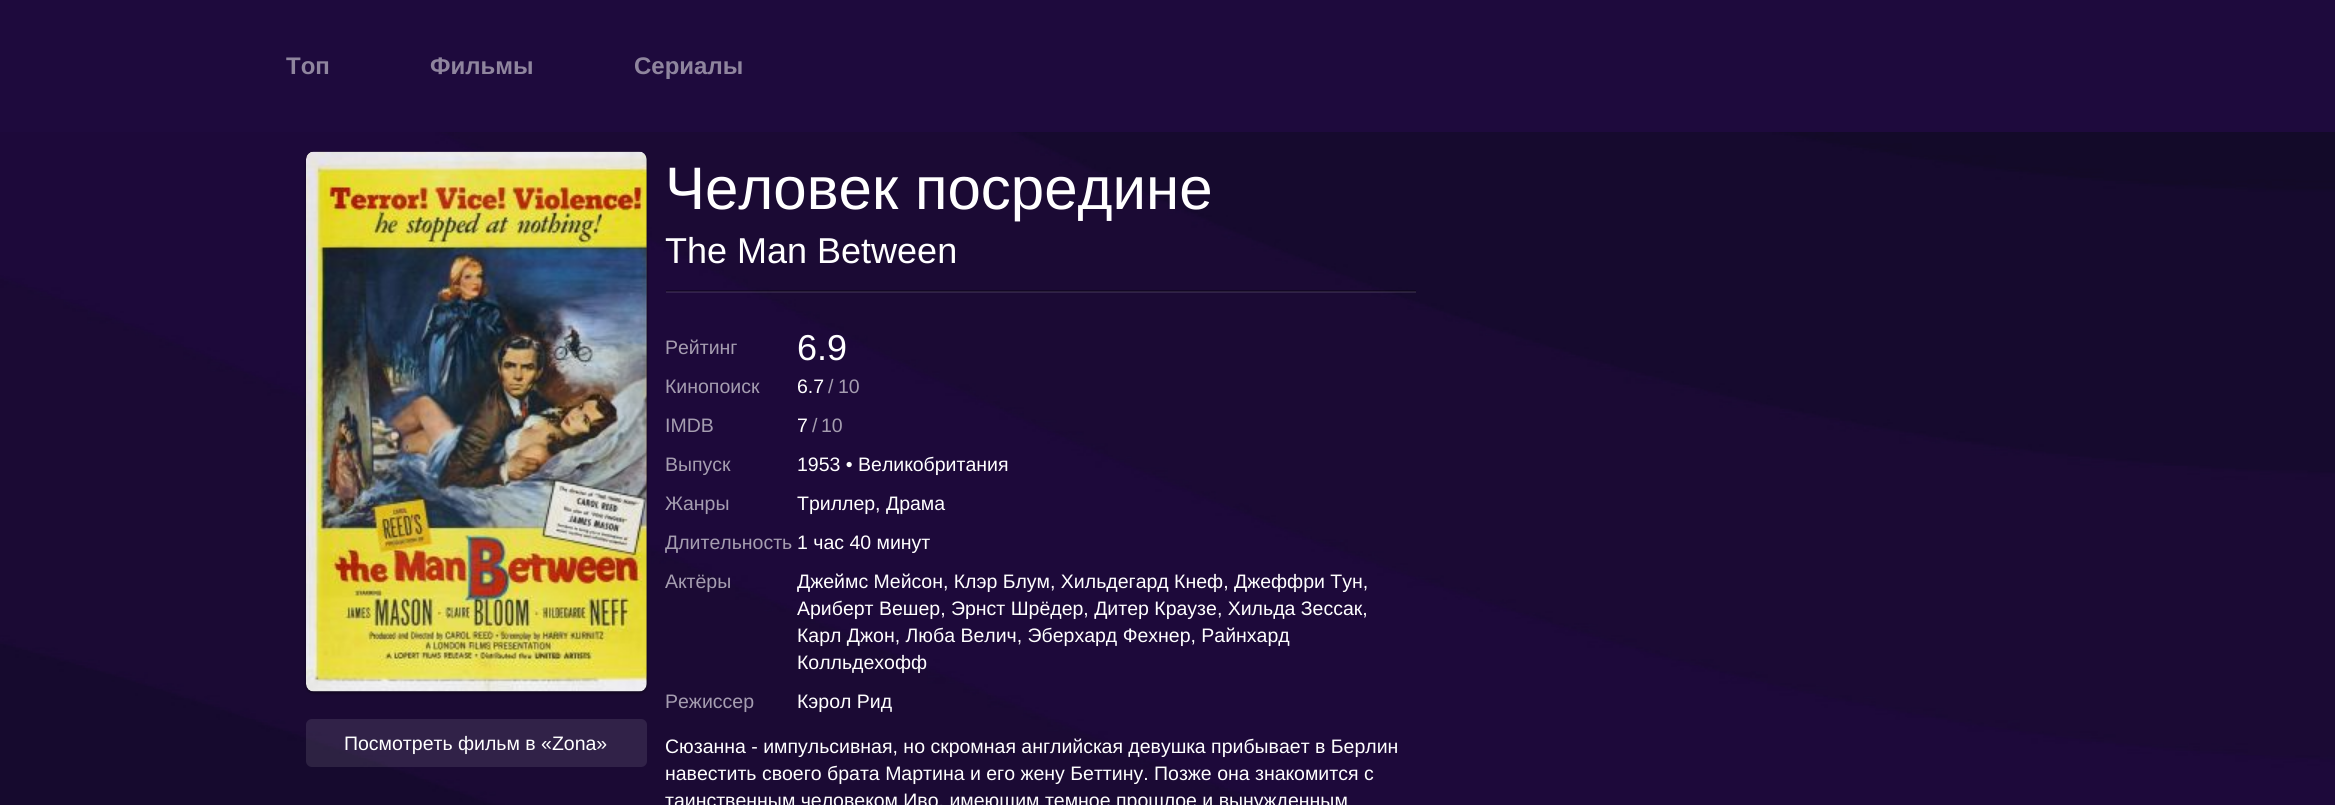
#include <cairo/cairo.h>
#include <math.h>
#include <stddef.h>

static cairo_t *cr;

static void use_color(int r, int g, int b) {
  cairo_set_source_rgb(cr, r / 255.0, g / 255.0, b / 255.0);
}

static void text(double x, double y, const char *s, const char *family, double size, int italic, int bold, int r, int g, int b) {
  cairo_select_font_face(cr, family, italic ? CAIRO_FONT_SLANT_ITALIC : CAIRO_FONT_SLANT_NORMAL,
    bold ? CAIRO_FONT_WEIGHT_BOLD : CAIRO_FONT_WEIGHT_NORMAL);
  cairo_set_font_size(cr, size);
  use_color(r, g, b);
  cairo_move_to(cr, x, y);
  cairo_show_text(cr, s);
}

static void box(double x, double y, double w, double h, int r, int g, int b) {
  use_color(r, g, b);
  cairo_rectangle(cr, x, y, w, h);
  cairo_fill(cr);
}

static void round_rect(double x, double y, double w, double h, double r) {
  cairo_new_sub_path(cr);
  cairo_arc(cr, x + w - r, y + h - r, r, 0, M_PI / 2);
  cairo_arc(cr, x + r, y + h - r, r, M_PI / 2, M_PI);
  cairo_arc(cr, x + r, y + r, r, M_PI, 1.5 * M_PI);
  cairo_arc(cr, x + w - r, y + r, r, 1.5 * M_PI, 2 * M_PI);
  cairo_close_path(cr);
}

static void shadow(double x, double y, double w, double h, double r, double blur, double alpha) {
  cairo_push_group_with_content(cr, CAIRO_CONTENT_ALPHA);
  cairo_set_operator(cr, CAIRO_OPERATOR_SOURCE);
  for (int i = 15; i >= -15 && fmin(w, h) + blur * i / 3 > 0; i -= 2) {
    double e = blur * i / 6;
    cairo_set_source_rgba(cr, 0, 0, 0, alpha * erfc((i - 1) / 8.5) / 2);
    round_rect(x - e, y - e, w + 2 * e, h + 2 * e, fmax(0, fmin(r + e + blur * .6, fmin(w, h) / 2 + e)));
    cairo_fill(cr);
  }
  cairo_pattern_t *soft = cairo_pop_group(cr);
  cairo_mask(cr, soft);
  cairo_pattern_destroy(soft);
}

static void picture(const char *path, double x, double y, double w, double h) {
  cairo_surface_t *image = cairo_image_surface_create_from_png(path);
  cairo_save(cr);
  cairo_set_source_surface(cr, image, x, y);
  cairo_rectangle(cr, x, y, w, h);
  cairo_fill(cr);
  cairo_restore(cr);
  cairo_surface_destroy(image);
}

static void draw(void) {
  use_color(255, 255, 255);
  cairo_paint(cr);
  picture("img_01.png", 0, 132, 2335, 673);
  box(0, 0, 2335, 132, 30, 10, 61);
  use_color(0, 0, 0);
  shadow(306, 153, 341, 540, 8, 1.5, 0.49);
  round_rect(307, 153, 339, 538, 7);
  cairo_set_source_rgba(cr, 1, 1, 1, 0.1);
  cairo_stroke(cr);
  picture("img_02.png", 306, 151, 341, 541);
  round_rect(306, 719, 341, 48, 6);
  cairo_fill(cr);
  cairo_set_source_rgba(cr, 0, 0, 0, 0.3);
  cairo_rectangle(cr, 666, 290, 750, 2);
  cairo_fill(cr);
  cairo_set_source_rgba(cr, 1, 1, 1, 0.1);
  cairo_rectangle(cr, 666, 291, 750, 2);
  cairo_fill(cr);
  text(286, 74, "Топ", "Liberation Sans", 24, 0, 1, 143, 133, 158);
  text(430, 74, "Фильмы", "Liberation Sans", 24, 0, 1, 143, 133, 158);
  text(634, 74, "Сериалы", "Liberation Sans", 24, 0, 1, 143, 133, 158);
  text(344, 750, "Посмотреть фильм в «Zona»", "Liberation Sans", 19.5, 0, 0, 255, 255, 255);
  text(665, 209, "Человек посредине", "Liberation Sans", 60, 0, 0, 255, 255, 255);
  text(665, 263, "The Man Between", "Liberation Sans", 36, 0, 0, 255, 255, 255);
  text(665, 354, "Рейтинг", "Liberation Sans", 19.5, 0, 0, 165, 157, 176);
  text(797, 360, "6.9", "Liberation Sans", 36, 0, 0, 255, 255, 255);
  text(665, 393, "Кинопоиск", "Liberation Sans", 19.5, 0, 0, 165, 157, 176);
  text(797, 393, "6.7", "Liberation Sans", 19.5, 0, 0, 255, 255, 255);
  text(828, 393, "/", "Liberation Sans", 19.5, 0, 0, 165, 157, 176);
  text(838, 393, "10", "Liberation Sans", 19.5, 0, 0, 165, 157, 176);
  text(665, 432, "IMDB", "Liberation Sans", 19.5, 0, 0, 165, 157, 176);
  text(797, 432, "7", "Liberation Sans", 19.5, 0, 0, 255, 255, 255);
  text(812, 432, "/", "Liberation Sans", 19.5, 0, 0, 165, 157, 176);
  text(821, 432, "10", "Liberation Sans", 19.5, 0, 0, 165, 157, 176);
  text(665, 471, "Выпуск", "Liberation Sans", 19.5, 0, 0, 165, 157, 176);
  text(797, 471, "1953 • Великобритания", "Liberation Sans", 19.5, 0, 0, 255, 255, 255);
  text(665, 510, "Жанры", "Liberation Sans", 19.5, 0, 0, 165, 157, 176);
  text(797, 510, "Триллер, Драма", "Liberation Sans", 19.5, 0, 0, 255, 255, 255);
  text(665, 549, "Длительность", "Liberation Sans", 19.5, 0, 0, 165, 157, 176);
  text(797, 549, "1 час 40 минут", "Liberation Sans", 19.5, 0, 0, 255, 255, 255);
  text(665, 588, "Актёры", "Liberation Sans", 19.5, 0, 0, 165, 157, 176);
  text(797, 588, "Джеймс Мейсон, Клэр Блум, Хильдегард Кнеф, Джеффри Тун,", "Liberation Sans", 19.5, 0, 0, 255, 255, 255);
  text(797, 615, "Ариберт Вешер, Эрнст Шрёдер, Дитер Краузе, Хильда Зессак,", "Liberation Sans", 19.5, 0, 0, 255, 255, 255);
  text(797, 642, "Карл Джон, Люба Велич, Эберхард Фехнер, Райнхард", "Liberation Sans", 19.5, 0, 0, 255, 255, 255);
  text(797, 669, "Колльдехофф", "Liberation Sans", 19.5, 0, 0, 255, 255, 255);
  text(665, 708, "Режиссер", "Liberation Sans", 19.5, 0, 0, 165, 157, 176);
  text(797, 708, "Кэрол Рид", "Liberation Sans", 19.5, 0, 0, 255, 255, 255);
  text(665, 753, "Сюзанна - импульсивная, но скромная английская девушка прибывает в Берлин", "Liberation Sans", 19.5, 0, 0, 255, 255, 255);
  text(665, 780, "навестить своего брата Мартина и его жену Беттину. Позже она знакомится с", "Liberation Sans", 19.5, 0, 0, 255, 255, 255);
  text(665, 807, "таинственным человеком Иво, имеющим темное прошлое и вынужденным", "Liberation Sans", 19.5, 0, 0, 255, 255, 255);
}

int main(void) {
  cairo_surface_t *surface = cairo_image_surface_create(CAIRO_FORMAT_RGB24, 2335, 805);
  cr = cairo_create(surface);
  cairo_font_options_t *options = cairo_font_options_create();
  cairo_font_options_set_hint_metrics(options, CAIRO_HINT_METRICS_OFF);
  cairo_font_options_set_hint_style(options, CAIRO_HINT_STYLE_NONE);
  cairo_set_font_options(cr, options);
  cairo_set_miter_limit(cr, 4);
  draw();
  cairo_surface_write_to_png(surface, "out.png");
  cairo_font_options_destroy(options);
  cairo_destroy(cr);
  cairo_surface_destroy(surface);
  return 0;
}
